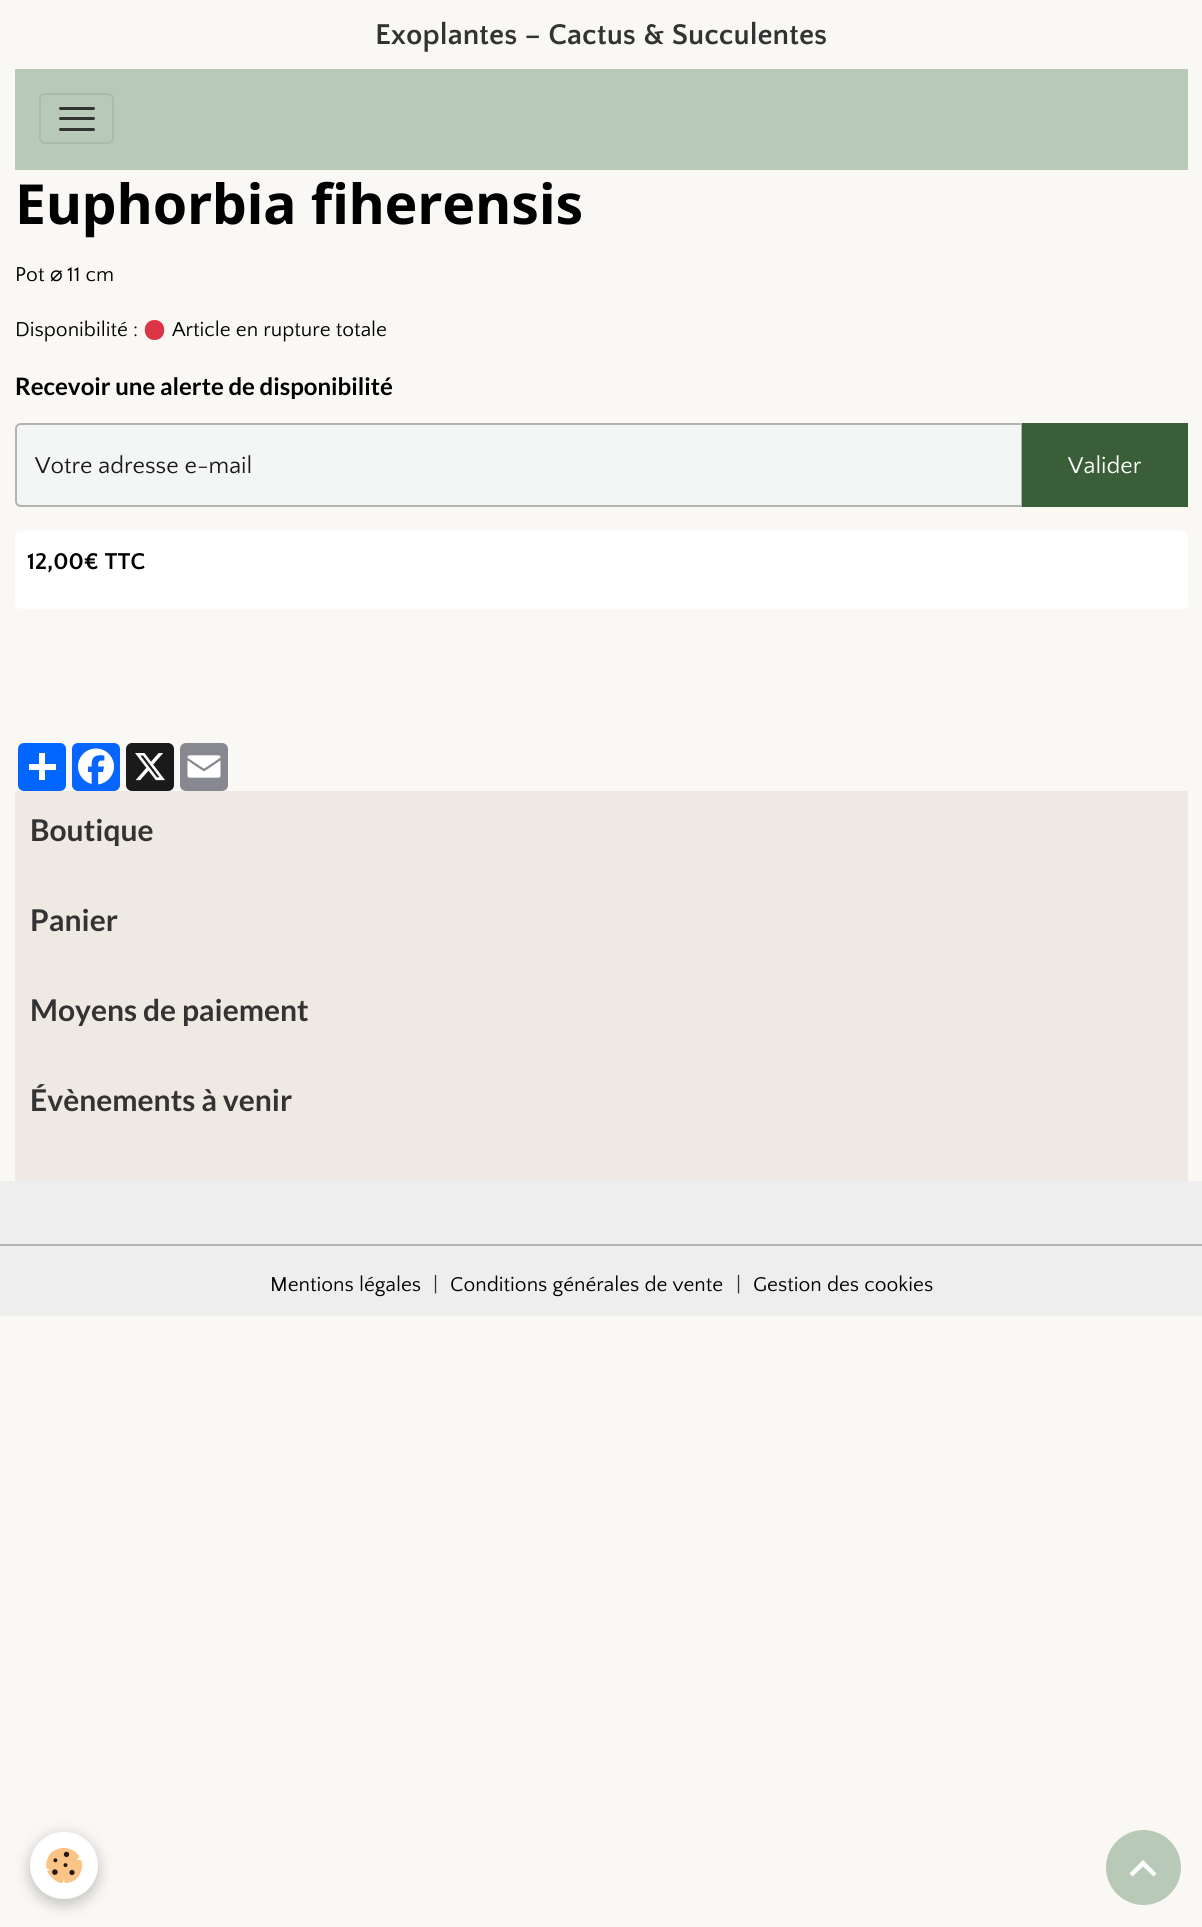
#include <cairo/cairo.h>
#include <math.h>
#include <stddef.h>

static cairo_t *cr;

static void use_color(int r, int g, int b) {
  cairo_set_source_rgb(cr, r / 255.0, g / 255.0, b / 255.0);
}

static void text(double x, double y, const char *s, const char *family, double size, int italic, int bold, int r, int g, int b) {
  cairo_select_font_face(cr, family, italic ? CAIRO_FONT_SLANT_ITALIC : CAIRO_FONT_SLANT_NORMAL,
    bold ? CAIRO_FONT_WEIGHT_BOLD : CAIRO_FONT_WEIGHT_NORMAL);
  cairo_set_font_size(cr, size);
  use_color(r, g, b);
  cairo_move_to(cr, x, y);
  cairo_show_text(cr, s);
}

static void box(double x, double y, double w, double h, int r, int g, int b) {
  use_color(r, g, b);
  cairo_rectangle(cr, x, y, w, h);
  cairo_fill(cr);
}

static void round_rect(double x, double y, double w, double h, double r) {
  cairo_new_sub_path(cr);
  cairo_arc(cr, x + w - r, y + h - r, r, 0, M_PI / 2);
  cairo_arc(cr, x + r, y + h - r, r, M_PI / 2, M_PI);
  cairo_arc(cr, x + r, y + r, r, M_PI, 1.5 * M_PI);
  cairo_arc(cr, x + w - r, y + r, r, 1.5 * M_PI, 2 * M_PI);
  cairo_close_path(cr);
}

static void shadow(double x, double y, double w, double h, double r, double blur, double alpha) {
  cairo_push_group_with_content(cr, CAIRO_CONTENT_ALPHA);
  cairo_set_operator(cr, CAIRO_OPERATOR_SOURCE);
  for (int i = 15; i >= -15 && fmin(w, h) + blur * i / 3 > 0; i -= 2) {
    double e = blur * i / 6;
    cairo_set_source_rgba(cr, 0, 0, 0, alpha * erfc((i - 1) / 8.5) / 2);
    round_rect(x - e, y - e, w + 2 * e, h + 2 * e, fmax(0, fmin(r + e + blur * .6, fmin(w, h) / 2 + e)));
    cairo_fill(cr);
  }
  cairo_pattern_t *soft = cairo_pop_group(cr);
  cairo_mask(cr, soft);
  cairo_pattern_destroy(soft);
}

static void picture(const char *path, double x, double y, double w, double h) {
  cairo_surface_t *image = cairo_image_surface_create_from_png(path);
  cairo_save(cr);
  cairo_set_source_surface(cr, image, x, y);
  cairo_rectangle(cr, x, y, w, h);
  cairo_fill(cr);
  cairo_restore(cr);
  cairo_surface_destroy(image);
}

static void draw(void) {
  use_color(250, 248, 245);
  cairo_paint(cr);
  box(15, 69, 1173, 101, 184, 201, 184);
  round_rect(40, 94, 73, 49, 5);
  use_color(171, 186, 171);
  cairo_stroke(cr);
  use_color(51, 51, 51);
  round_rect(59, 107, 36, 3, 1.5);
  cairo_fill(cr);
  round_rect(59, 117, 36, 3, 1.5);
  cairo_fill(cr);
  round_rect(59, 128, 36, 3, 1.5);
  cairo_fill(cr);
  use_color(220, 53, 69);
  cairo_new_path(cr);
  cairo_move_to(cr, 154.5, 320);
  cairo_curve_to(cr, 167.5, 320, 167.5, 340, 154.5, 340);
  cairo_curve_to(cr, 141.5, 340, 141.5, 320, 154.5, 320);
  cairo_close_path(cr);
  cairo_fill(cr);
  use_color(243, 246, 244);
  cairo_new_path(cr);
  cairo_move_to(cr, 21, 424);
  cairo_line_to(cr, 1022, 424);
  cairo_line_to(cr, 1022, 506);
  cairo_line_to(cr, 21, 506);
  cairo_curve_to(cr, 18, 506, 16, 504, 16, 501);
  cairo_line_to(cr, 16, 429);
  cairo_curve_to(cr, 16, 426, 18, 424, 21, 424);
  cairo_close_path(cr);
  cairo_fill_preserve(cr);
  use_color(179, 179, 179);
  cairo_stroke(cr);
  box(1022, 423, 166, 84, 58, 94, 55);
  use_color(255, 255, 255);
  round_rect(15, 531, 1173, 78, 6);
  cairo_fill(cr);
  use_color(1, 102, 255);
  round_rect(18, 743, 48, 48, 6);
  cairo_fill(cr);
  box(39, 753, 6, 27, 255, 255, 255);
  box(29, 764, 27, 6, 255, 255, 255);
  use_color(8, 102, 255);
  round_rect(72, 743, 48, 48, 6);
  cairo_fill(cr);
  picture("img_01.png", 78, 748, 36, 37);
  use_color(26, 26, 26);
  round_rect(126, 743, 48, 48, 6);
  cairo_fill(cr);
  picture("img_02.png", 135, 753, 30, 28);
  use_color(136, 137, 144);
  round_rect(180, 743, 48, 48, 6);
  cairo_fill(cr);
  picture("img_03.png", 187, 755, 34, 23);
  box(15, 791, 1173, 390, 238, 234, 227);
  box(0, 1181, 1202, 135, 238, 238, 238);
  box(0, 1244, 1202, 2, 179, 179, 179);
  use_color(0, 0, 0);
  shadow(30, 1836, 68, 68, 34, 7.5, 0.24);
  use_color(255, 255, 255);
  round_rect(30, 1832, 68, 67, 33.5);
  cairo_fill(cr);
  picture("img_04.png", 46, 1847, 37, 36);
  use_color(184, 201, 184);
  cairo_arc(cr, 1143.5, 1867.5, 37.5, 0, 2 * M_PI);
  cairo_fill(cr);
  use_color(255, 255, 255);
  cairo_new_path(cr);
  cairo_move_to(cr, 1143, 1860);
  cairo_line_to(cr, 1156.5, 1873.5);
  cairo_line_to(cr, 1153.5, 1876.5);
  cairo_line_to(cr, 1143, 1866.5);
  cairo_line_to(cr, 1132.5, 1876.5);
  cairo_line_to(cr, 1129.5, 1873.5);
  cairo_close_path(cr);
  cairo_fill(cr);
  text(375, 44, "Exoplantes – Cactus & Succulentes", "Quattrocento Sans", 30, 0, 1, 51, 51, 51);
  text(15, 224, "Euphorbia fiherensis", "Noto Sans", 55.25, 0, 1, 0, 0, 0);
  text(15, 281, "Pot", "Quattrocento Sans", 21, 0, 0, 0, 0, 0);
  text(50, 281, "⌀", "DejaVu Sans", 21, 0, 0, 0, 0, 0);
  text(67, 281, "11 cm", "Quattrocento Sans", 21, 0, 0, 0, 0, 0);
  text(15, 336, "Disponibilité :", "Quattrocento Sans", 21, 0, 0, 0, 0, 0);
  text(172, 336, "Article en rupture totale", "Quattrocento Sans", 21, 0, 0, 0, 0, 0);
  text(15, 395, "Recevoir une alerte de disponibilité", "Lato", 24, 0, 1, 0, 0, 0);
  text(35, 473, "Votre adresse e-mail", "Quattrocento Sans", 24, 0, 0, 26, 26, 26);
  text(1068, 473, "Valider", "Quattrocento Sans", 24, 0, 0, 255, 255, 255);
  text(27, 569, "12,00€ TTC", "Quattrocento Sans", 24, 0, 1, 0, 0, 0);
  text(30, 841, "Boutique", "Lato", 30, 0, 1, 51, 51, 51);
  text(30, 931, "Panier", "Lato", 30, 0, 1, 51, 51, 51);
  text(30, 1021, "Moyens de paiement", "Lato", 30, 0, 1, 51, 51, 51);
  text(30, 1111, "Évènements à venir", "Lato", 30, 0, 1, 51, 51, 51);
  text(270, 1291, "Mentions légales", "Quattrocento Sans", 21, 0, 0, 0, 0, 0);
  text(433, 1291, "|", "Quattrocento Sans", 21, 0, 0, 51, 51, 51);
  text(450, 1291, "Conditions générales de vente", "Quattrocento Sans", 21, 0, 0, 0, 0, 0);
  text(736, 1291, "|", "Quattrocento Sans", 21, 0, 0, 51, 51, 51);
  text(753, 1291, "Gestion des cookies", "Quattrocento Sans", 21, 0, 0, 0, 0, 0);
}

int main(void) {
  cairo_surface_t *surface = cairo_image_surface_create(CAIRO_FORMAT_RGB24, 1202, 1927);
  cr = cairo_create(surface);
  cairo_font_options_t *options = cairo_font_options_create();
  cairo_font_options_set_hint_metrics(options, CAIRO_HINT_METRICS_OFF);
  cairo_font_options_set_hint_style(options, CAIRO_HINT_STYLE_NONE);
  cairo_set_font_options(cr, options);
  cairo_set_miter_limit(cr, 4);
  draw();
  cairo_surface_write_to_png(surface, "out.png");
  cairo_font_options_destroy(options);
  cairo_destroy(cr);
  cairo_surface_destroy(surface);
  return 0;
}
